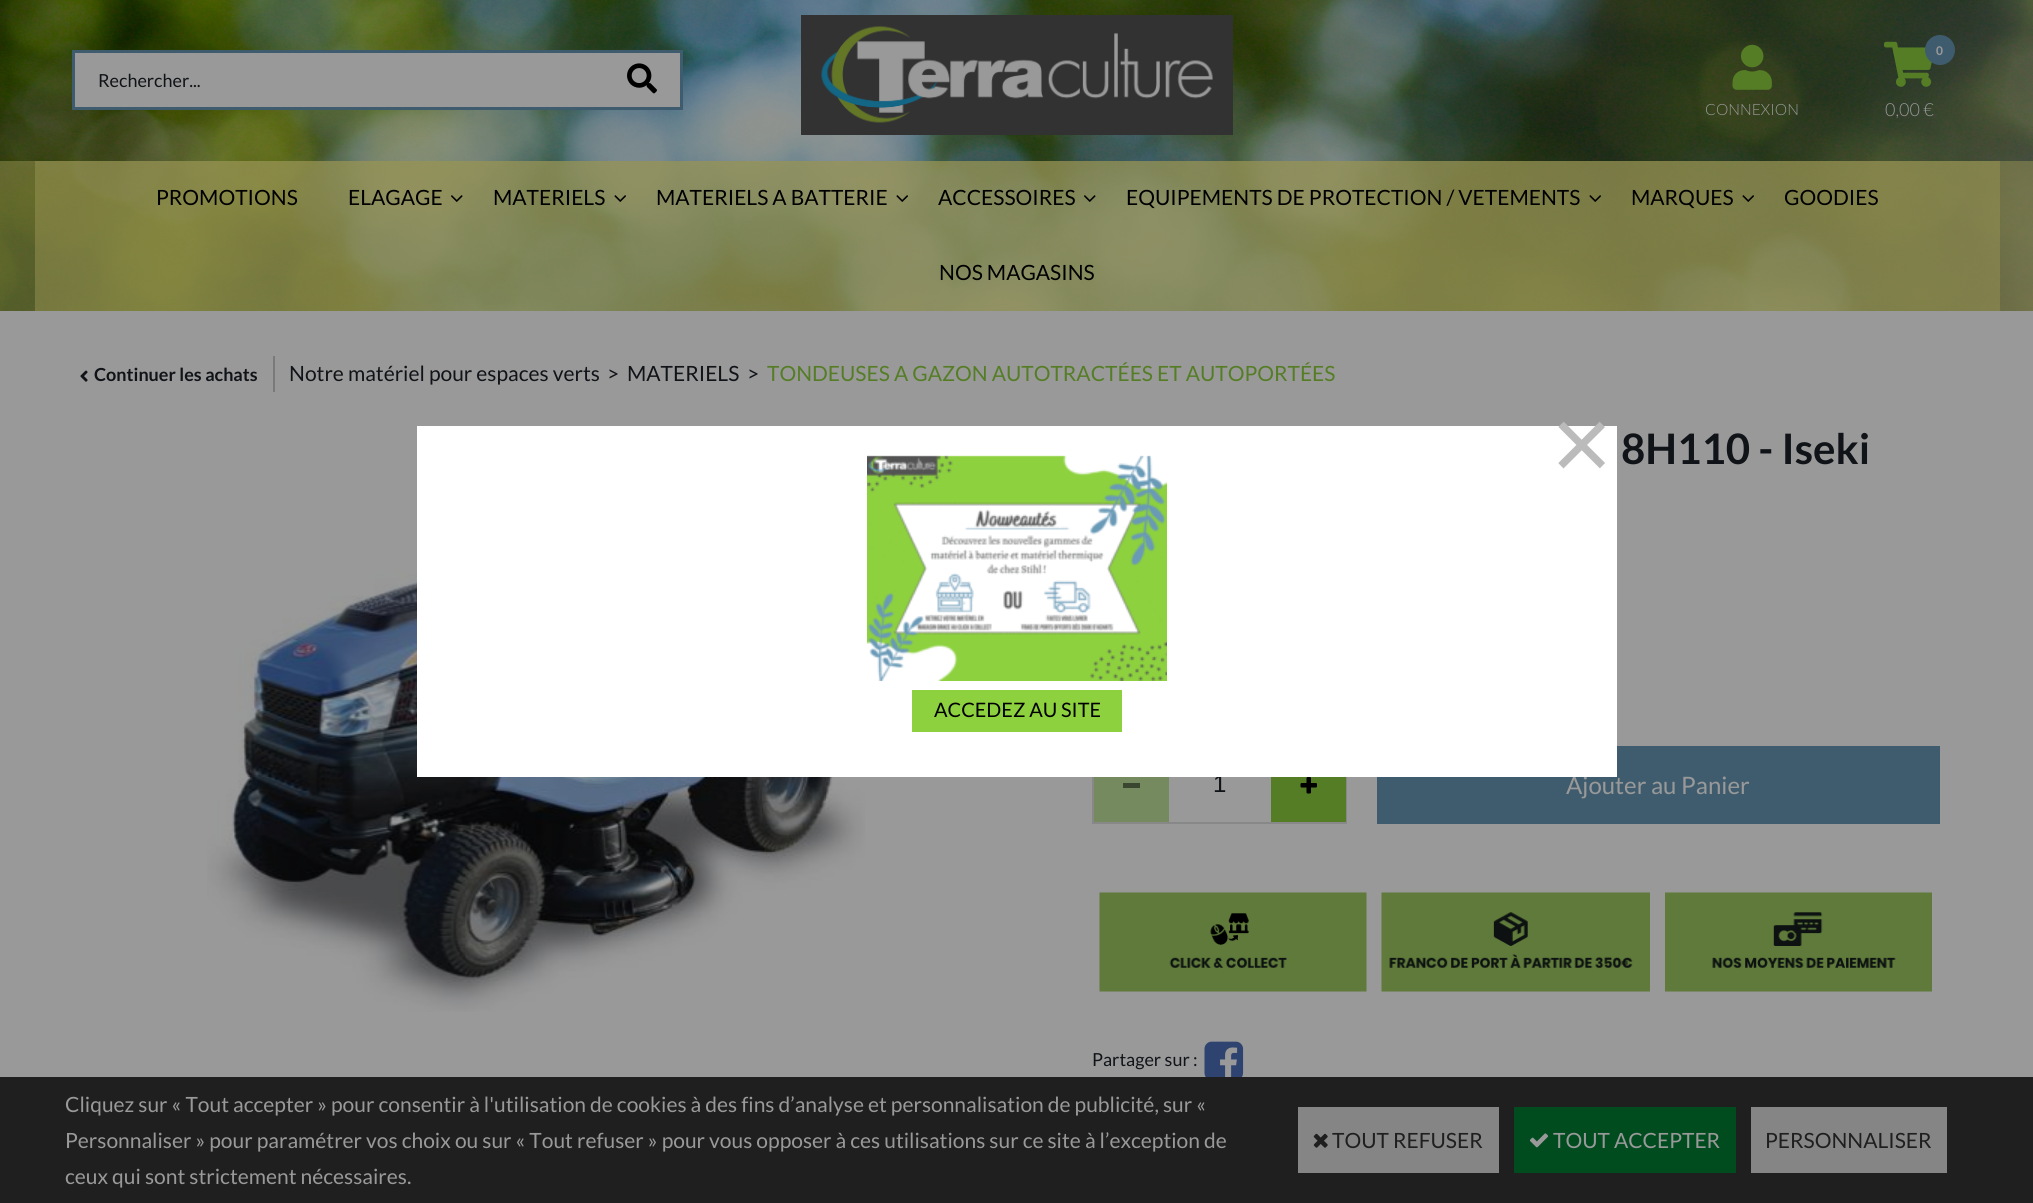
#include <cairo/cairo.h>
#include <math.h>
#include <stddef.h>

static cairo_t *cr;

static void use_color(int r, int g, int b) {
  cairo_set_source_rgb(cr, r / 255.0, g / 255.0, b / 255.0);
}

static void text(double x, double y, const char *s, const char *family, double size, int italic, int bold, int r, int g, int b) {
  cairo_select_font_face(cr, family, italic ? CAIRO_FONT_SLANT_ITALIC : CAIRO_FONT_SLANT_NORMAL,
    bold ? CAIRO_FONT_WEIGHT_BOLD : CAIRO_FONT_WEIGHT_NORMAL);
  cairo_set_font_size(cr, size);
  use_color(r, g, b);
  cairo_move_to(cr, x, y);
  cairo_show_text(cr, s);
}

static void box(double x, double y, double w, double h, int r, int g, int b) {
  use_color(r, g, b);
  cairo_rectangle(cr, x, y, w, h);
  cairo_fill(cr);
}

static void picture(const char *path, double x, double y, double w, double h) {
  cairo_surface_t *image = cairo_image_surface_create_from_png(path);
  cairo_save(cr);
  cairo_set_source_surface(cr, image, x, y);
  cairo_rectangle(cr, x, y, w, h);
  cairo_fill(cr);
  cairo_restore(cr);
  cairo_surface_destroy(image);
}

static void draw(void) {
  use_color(153, 153, 153);
  cairo_paint(cr);
  picture("img_01.png", 0, 0, 2033, 311);
  box(75, 53, 605, 54, 153, 153, 153);
  box(72, 50, 611, 3, 63, 92, 110);
  box(72, 107, 533, 3, 63, 92, 110);
  box(72, 50, 3, 60, 63, 92, 110);
  box(680, 50, 3, 60, 63, 92, 110);
  box(605, 107, 78, 3, 63, 92, 110);
  picture("img_02.png", 627, 63, 30, 31);
  picture("img_03.png", 801, 15, 432, 120);
  picture("img_04.png", 1732, 44, 40, 46);
  picture("img_05.png", 1884, 41, 48, 46);
  cairo_arc(cr, 1940, 50, 15, 0, 2 * M_PI);
  cairo_fill(cr);
  cairo_set_source_rgba(cr, 0.6, 0.58, 0.333, 0.5);
  cairo_rectangle(cr, 0, 161, 2033, 150);
  cairo_fill(cr);
  cairo_rectangle(cr, 35, 161, 1965, 150);
  cairo_fill(cr);
  picture("img_06.png", 451, 195, 12, 7);
  picture("img_07.png", 614, 195, 12, 7);
  picture("img_08.png", 896, 195, 12, 7);
  picture("img_09.png", 1084, 195, 12, 7);
  picture("img_10.png", 1589, 195, 12, 7);
  picture("img_11.png", 1742, 195, 12, 7);
  picture("img_12.png", 80, 370, 8, 12);
  box(273, 356, 2, 36, 122, 122, 122);
  picture("img_13.png", 207, 460, 658, 552);
  cairo_rectangle(cr, 1093, 747, 253, 76);
  use_color(136, 136, 136);
  cairo_stroke(cr);
  cairo_set_source_rgba(cr, 0.333, 0.49, 0.149, 0.5);
  cairo_rectangle(cr, 1094, 777, 75, 45);
  cairo_fill(cr);
  box(1123, 783, 17, 5, 59, 70, 48);
  box(1271, 777, 75, 45, 85, 125, 38);
  picture("img_14.png", 1300, 777, 17, 17);
  box(1377, 746, 563, 78, 63, 92, 110);
  picture("img_15.png", 1099, 892, 268, 100);
  picture("img_16.png", 1381, 892, 269, 100);
  picture("img_17.png", 1665, 892, 267, 100);
  picture("img_18.png", 1204, 1041, 40, 36);
  box(0, 1077, 2033, 126, 31, 31, 31);
  box(1298, 1107, 201, 66, 133, 133, 133);
  picture("img_19.png", 1313, 1133, 15, 15);
  box(1514, 1107, 222, 66, 0, 76, 31);
  picture("img_20.png", 1529, 1133, 20, 15);
  box(1751, 1107, 196, 66, 133, 133, 133);
  text(98, 87, "Rechercher...", "Lato", 18, 0, 0, 16, 19, 23);
  text(1705, 115, "CONNEXION", "Lato Light", 15.5, 0, 0, 153, 153, 153);
  text(1936, 55, "0", "Lato", 12, 0, 1, 153, 153, 153);
  text(1885, 116, "0,00 €", "Lato Light", 18, 0, 0, 153, 153, 153);
  text(156, 205, "PROMOTIONS", "Lato", 21, 0, 0, 0, 0, 0);
  text(348, 205, "ELAGAGE", "Lato", 21, 0, 0, 0, 0, 0);
  text(493, 205, "MATERIELS", "Lato", 21, 0, 0, 0, 0, 0);
  text(656, 205, "MATERIELS A BATTERIE", "Lato", 21, 0, 0, 0, 0, 0);
  text(938, 205, "ACCESSOIRES", "Lato", 21, 0, 0, 0, 0, 0);
  text(1126, 205, "EQUIPEMENTS DE PROTECTION / VETEMENTS", "Lato", 21, 0, 0, 0, 0, 0);
  text(1631, 205, "MARQUES", "Lato", 21, 0, 0, 0, 0, 0);
  text(1784, 205, "GOODIES", "Lato", 21, 0, 0, 0, 0, 0);
  text(939, 280, "NOS MAGASINS", "Lato", 21, 0, 0, 0, 0, 0);
  text(94, 381, "Continuer les achats", "Lato", 18, 0, 1, 16, 19, 23);
  text(289, 381, "Notre matériel pour espaces verts", "Lato", 21, 0, 0, 16, 19, 23);
  text(607, 381, ">", "Lato", 21, 0, 0, 16, 19, 23);
  text(627, 381, "MATERIELS", "Lato", 21, 0, 0, 16, 19, 23);
  text(747, 381, ">", "Lato", 21, 0, 0, 16, 19, 23);
  text(767, 381, "TONDEUSES A GAZON AUTOTRACTÉES ET AUTOPORTÉES", "Lato", 21, 0, 0, 85, 125, 38);
  text(1621, 464, "8H110 - Iseki", "Lato", 42, 0, 1, 16, 19, 23);
  text(1213, 792, "1", "Liberation Sans", 24, 0, 0, 16, 19, 23);
  text(1566, 794, "Ajouter au Panier", "Lato", 24, 0, 0, 153, 153, 153);
  text(1092, 1066, "Partager sur :", "Lato", 18, 0, 0, 16, 19, 23);
  text(65, 1112, "Cliquez sur « Tout accepter » pour consentir à l'utilisation de cookies à des fins d’analyse et personnalisation de publicité, sur «", "Lato", 21, 0, 0, 153, 153, 153);
  text(65, 1148, "Personnaliser » pour paramétrer vos choix ou sur « Tout refuser » pour vous opposer à ces utilisations sur ce site à l’exception de", "Lato", 21, 0, 0, 153, 153, 153);
  text(65, 1184, "ceux qui sont strictement nécessaires.", "Lato", 21, 0, 0, 153, 153, 153);
  text(1332, 1148, "TOUT REFUSER", "Lato", 21, 0, 0, 31, 31, 31);
  text(1553, 1148, "TOUT ACCEPTER", "Lato", 21, 0, 0, 153, 153, 153);
  text(1765, 1148, "PERSONNALISER", "Lato", 21, 0, 0, 31, 31, 31);
  box(417, 426, 1200, 351, 255, 255, 255);
  text(1551, 480, "×", "Liberation Sans", 105, 0, 0, 187, 187, 187);
  picture("img_21.png", 867, 455, 300, 226);
  box(912, 690, 210, 42, 141, 209, 63);
  text(934, 717, "ACCEDEZ AU SITE", "Lato", 19.9, 0, 0, 0, 0, 0);
}

int main(void) {
  cairo_surface_t *surface = cairo_image_surface_create(CAIRO_FORMAT_RGB24, 2033, 1203);
  cr = cairo_create(surface);
  cairo_font_options_t *options = cairo_font_options_create();
  cairo_font_options_set_hint_metrics(options, CAIRO_HINT_METRICS_OFF);
  cairo_font_options_set_hint_style(options, CAIRO_HINT_STYLE_NONE);
  cairo_set_font_options(cr, options);
  cairo_set_miter_limit(cr, 4);
  draw();
  cairo_surface_write_to_png(surface, "out.png");
  cairo_font_options_destroy(options);
  cairo_destroy(cr);
  cairo_surface_destroy(surface);
  return 0;
}
